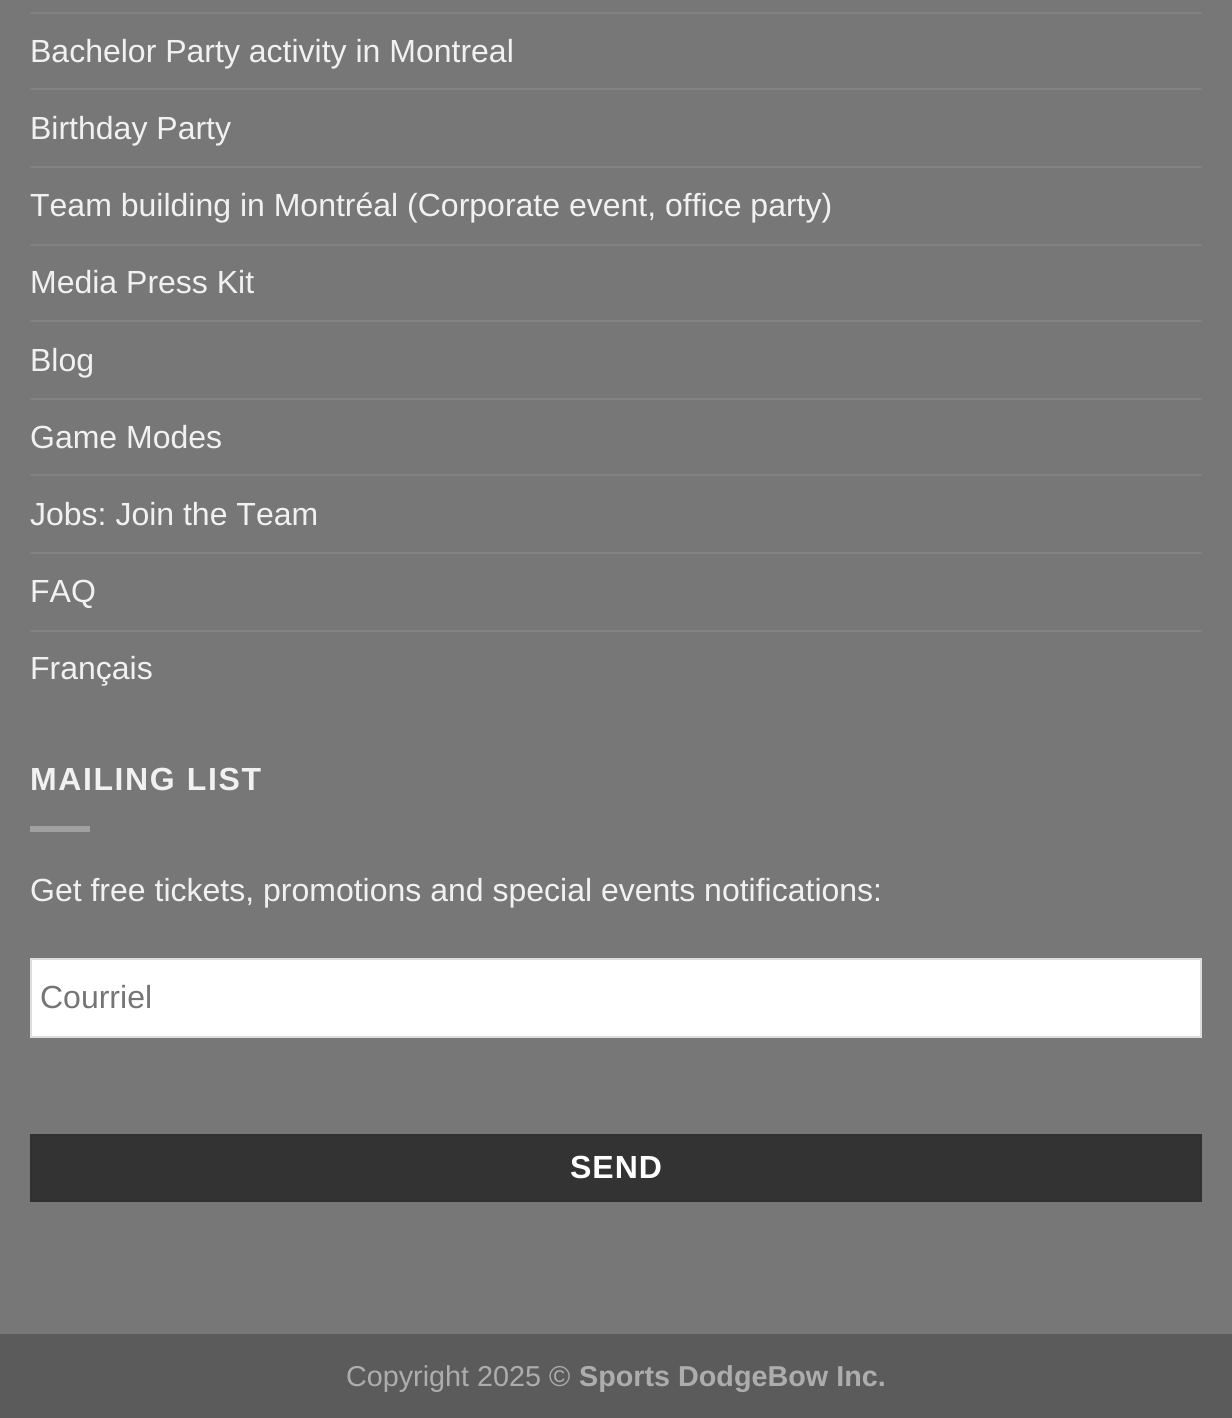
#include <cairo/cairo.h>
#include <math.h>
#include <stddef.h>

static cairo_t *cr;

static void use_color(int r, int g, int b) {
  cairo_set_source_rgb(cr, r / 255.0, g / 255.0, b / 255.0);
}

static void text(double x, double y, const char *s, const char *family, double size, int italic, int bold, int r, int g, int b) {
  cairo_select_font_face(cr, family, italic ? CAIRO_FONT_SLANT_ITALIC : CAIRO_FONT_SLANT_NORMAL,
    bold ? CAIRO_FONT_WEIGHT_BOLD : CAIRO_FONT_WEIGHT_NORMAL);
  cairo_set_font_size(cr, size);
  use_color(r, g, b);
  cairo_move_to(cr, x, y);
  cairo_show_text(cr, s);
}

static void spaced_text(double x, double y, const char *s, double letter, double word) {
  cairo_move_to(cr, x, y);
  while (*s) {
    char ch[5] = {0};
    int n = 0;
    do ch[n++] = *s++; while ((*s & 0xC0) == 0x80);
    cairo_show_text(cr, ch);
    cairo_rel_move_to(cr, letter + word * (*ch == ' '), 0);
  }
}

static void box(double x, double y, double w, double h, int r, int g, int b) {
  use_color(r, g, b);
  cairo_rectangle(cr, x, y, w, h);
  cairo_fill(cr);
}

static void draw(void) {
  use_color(119, 119, 119);
  cairo_paint(cr);
  box(30, 12, 1172, 2, 130, 130, 130);
  box(30, 88, 1172, 2, 130, 130, 130);
  box(30, 166, 1172, 2, 130, 130, 130);
  box(30, 244, 1172, 2, 130, 130, 130);
  box(30, 320, 1172, 2, 130, 130, 130);
  box(30, 398, 1172, 2, 130, 130, 130);
  box(30, 474, 1172, 2, 130, 130, 130);
  box(30, 552, 1172, 2, 130, 130, 130);
  box(30, 630, 1172, 2, 130, 130, 130);
  box(30, 826, 60, 6, 160, 160, 160);
  use_color(255, 255, 255);
  cairo_rectangle(cr, 31, 959, 1170, 78);
  cairo_fill_preserve(cr);
  use_color(221, 221, 221);
  cairo_stroke(cr);
  use_color(51, 51, 51);
  cairo_rectangle(cr, 31, 1135, 1170, 66);
  cairo_fill_preserve(cr);
  use_color(48, 48, 48);
  cairo_stroke(cr);
  box(0, 1334, 1232, 84, 91, 91, 91);
  text(30, 62, "Bachelor Party activity in Montreal", "Liberation Sans", 32, 0, 0, 241, 241, 241);
  text(30, 139, "Birthday Party", "Liberation Sans", 32, 0, 0, 241, 241, 241);
  text(30, 216, "Team building in Montréal (Corporate event, office party)", "Liberation Sans", 32, 0, 0, 241, 241, 241);
  text(30, 293, "Media Press Kit", "Liberation Sans", 32, 0, 0, 241, 241, 241);
  text(30, 371, "Blog", "Liberation Sans", 32, 0, 0, 241, 241, 241);
  text(30, 448, "Game Modes", "Liberation Sans", 32, 0, 0, 241, 241, 241);
  text(30, 525, "Jobs: Join the Team", "Liberation Sans", 32, 0, 0, 241, 241, 241);
  text(30, 602, "FAQ", "Liberation Sans", 32, 0, 0, 241, 241, 241);
  text(30, 679, "Français", "Liberation Sans", 32, 0, 0, 241, 241, 241);
  cairo_select_font_face(cr, "Liberation Sans", CAIRO_FONT_SLANT_NORMAL, CAIRO_FONT_WEIGHT_BOLD);
  spaced_text(30, 790, "MAILING LIST", 1.6, 0);
  text(30, 901, "Get free tickets, promotions and special events notifications:", "Liberation Sans", 32, 0, 0, 241, 241, 241);
  text(40, 1008, "Courriel", "Liberation Sans", 32, 0, 0, 117, 117, 117);
  cairo_select_font_face(cr, "Liberation Sans", CAIRO_FONT_SLANT_NORMAL, CAIRO_FONT_WEIGHT_BOLD);
  use_color(255, 255, 255);
  spaced_text(570, 1178, "SEND", 1, 0);
  text(346, 1386, "Copyright 2025 ©", "Liberation Sans", 28.75, 0, 0, 173, 173, 173);
  text(579, 1386, "Sports DodgeBow Inc.", "Liberation Sans", 28.75, 0, 1, 173, 173, 173);
}

int main(void) {
  cairo_surface_t *surface = cairo_image_surface_create(CAIRO_FORMAT_RGB24, 1232, 1418);
  cr = cairo_create(surface);
  cairo_font_options_t *options = cairo_font_options_create();
  cairo_font_options_set_hint_metrics(options, CAIRO_HINT_METRICS_OFF);
  cairo_font_options_set_hint_style(options, CAIRO_HINT_STYLE_NONE);
  cairo_set_font_options(cr, options);
  cairo_set_miter_limit(cr, 4);
  draw();
  cairo_surface_write_to_png(surface, "out.png");
  cairo_font_options_destroy(options);
  cairo_destroy(cr);
  cairo_surface_destroy(surface);
  return 0;
}
